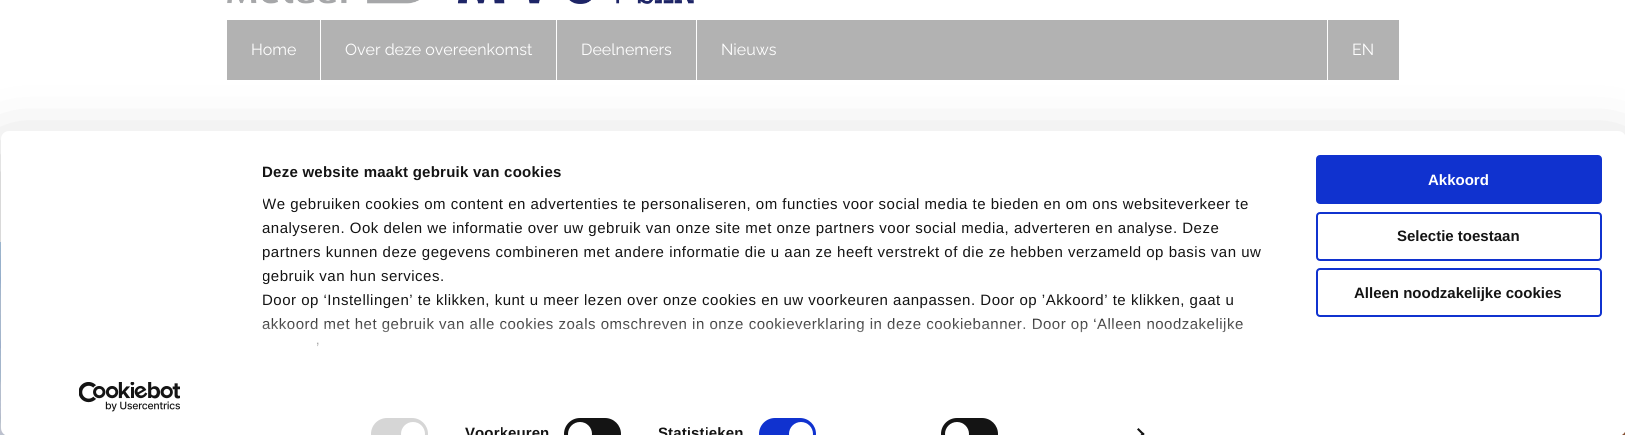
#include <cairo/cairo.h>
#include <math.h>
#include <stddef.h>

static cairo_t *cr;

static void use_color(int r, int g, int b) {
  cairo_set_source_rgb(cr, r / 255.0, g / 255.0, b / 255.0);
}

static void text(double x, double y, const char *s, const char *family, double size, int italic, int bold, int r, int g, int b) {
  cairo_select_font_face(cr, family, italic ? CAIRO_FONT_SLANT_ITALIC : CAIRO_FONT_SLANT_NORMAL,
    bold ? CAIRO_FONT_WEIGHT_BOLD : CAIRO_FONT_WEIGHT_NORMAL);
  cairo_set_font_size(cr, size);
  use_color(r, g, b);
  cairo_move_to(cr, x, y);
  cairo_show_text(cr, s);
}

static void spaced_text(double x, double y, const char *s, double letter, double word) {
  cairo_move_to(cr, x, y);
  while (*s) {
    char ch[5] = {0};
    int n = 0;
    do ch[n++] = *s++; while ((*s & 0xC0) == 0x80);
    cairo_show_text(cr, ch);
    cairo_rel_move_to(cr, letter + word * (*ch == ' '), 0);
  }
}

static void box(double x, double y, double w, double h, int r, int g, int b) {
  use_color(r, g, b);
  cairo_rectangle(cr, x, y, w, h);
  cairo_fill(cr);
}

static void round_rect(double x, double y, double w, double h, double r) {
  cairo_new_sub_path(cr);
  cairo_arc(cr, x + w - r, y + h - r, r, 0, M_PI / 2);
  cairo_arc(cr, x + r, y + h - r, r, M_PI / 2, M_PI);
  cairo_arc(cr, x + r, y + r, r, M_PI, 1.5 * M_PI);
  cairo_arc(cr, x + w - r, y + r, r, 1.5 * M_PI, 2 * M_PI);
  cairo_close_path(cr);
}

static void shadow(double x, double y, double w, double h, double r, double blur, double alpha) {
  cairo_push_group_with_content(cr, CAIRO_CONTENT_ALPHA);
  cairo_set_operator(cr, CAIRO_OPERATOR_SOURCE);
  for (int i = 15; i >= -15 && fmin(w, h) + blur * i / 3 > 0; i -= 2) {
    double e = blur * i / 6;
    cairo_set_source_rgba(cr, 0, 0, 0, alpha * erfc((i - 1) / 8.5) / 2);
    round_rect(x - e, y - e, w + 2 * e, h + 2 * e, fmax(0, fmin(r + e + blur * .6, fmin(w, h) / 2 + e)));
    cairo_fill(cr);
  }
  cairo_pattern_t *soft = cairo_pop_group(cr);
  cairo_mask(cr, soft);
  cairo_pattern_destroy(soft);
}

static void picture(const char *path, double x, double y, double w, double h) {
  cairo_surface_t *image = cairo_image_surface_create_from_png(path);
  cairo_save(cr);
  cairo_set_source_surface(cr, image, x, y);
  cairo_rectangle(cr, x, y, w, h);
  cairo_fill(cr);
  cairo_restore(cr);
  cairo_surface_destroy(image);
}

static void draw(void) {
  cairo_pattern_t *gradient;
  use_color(255, 255, 255);
  cairo_paint(cr);
  picture("img_01.png", 227, 0, 467, 4);
  box(227, 20, 1172, 60, 178, 178, 178);
  box(320, 20, 1, 60, 255, 255, 255);
  box(556, 20, 1, 60, 255, 255, 255);
  box(696, 20, 1, 60, 255, 255, 255);
  box(1327, 20, 1, 60, 255, 255, 255);
  picture("img_03.png", 0, 242, 1625, 193);
  use_color(0, 0, 0);
  shadow(1, 161, 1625, 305, 8, 35, 0.3);
  use_color(255, 255, 255);
  round_rect(1, 131, 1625, 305, 8);
  cairo_fill(cr);
  use_color(214, 214, 214);
  round_rect(371, 418, 57, 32, 16);
  cairo_fill(cr);
  use_color(255, 255, 255);
  cairo_arc(cr, 413, 434, 12, 0, 2 * M_PI);
  cairo_fill(cr);
  use_color(20, 20, 20);
  round_rect(564, 418, 57, 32, 16);
  cairo_fill(cr);
  use_color(255, 255, 255);
  cairo_arc(cr, 580, 434, 12, 0, 2 * M_PI);
  cairo_fill(cr);
  use_color(16, 50, 207);
  round_rect(759, 418, 57, 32, 16);
  cairo_fill(cr);
  use_color(255, 255, 255);
  cairo_arc(cr, 801, 434, 12, 0, 2 * M_PI);
  cairo_fill(cr);
  use_color(20, 20, 20);
  round_rect(941, 418, 57, 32, 16);
  cairo_fill(cr);
  use_color(255, 255, 255);
  cairo_arc(cr, 957, 434, 12, 0, 2 * M_PI);
  cairo_fill(cr);
  use_color(20, 20, 20);
  cairo_new_path(cr);
  cairo_move_to(cr, 1138.5, 428);
  cairo_line_to(cr, 1144.5, 434);
  cairo_line_to(cr, 1143, 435.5);
  cairo_line_to(cr, 1137, 429.5);
  cairo_close_path(cr);
  cairo_fill(cr);
  cairo_new_path(cr);
  cairo_move_to(cr, 1143, 432.5);
  cairo_line_to(cr, 1144.5, 434);
  cairo_line_to(cr, 1142.5, 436);
  cairo_line_to(cr, 1139.5, 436);
  cairo_close_path(cr);
  cairo_fill(cr);
  use_color(16, 50, 207);
  round_rect(1317, 156, 284, 47, 3);
  cairo_fill_preserve(cr);
  cairo_stroke(cr);
  round_rect(1317, 213, 284, 47, 3);
  cairo_stroke(cr);
  round_rect(1317, 269, 284, 47, 3);
  cairo_stroke(cr);
  picture("img_02.png", 79, 382, 101, 30);
  text(251, 55, "Home", "Raleway Thin", 16, 0, 0, 255, 255, 255);
  text(345, 55, "Over deze overeenkomst", "Raleway Thin", 16, 0, 0, 255, 255, 255);
  text(581, 55, "Deelnemers", "Raleway Thin", 16, 0, 0, 255, 255, 255);
  text(721, 55, "Nieuws", "Raleway Thin", 16, 0, 0, 255, 255, 255);
  text(1352, 55, "EN", "Raleway Thin", 16, 0, 0, 255, 255, 255);
  cairo_select_font_face(cr, "Liberation Sans", CAIRO_FONT_SLANT_NORMAL, CAIRO_FONT_WEIGHT_BOLD);
  cairo_set_font_size(cr, 15);
  use_color(20, 20, 20);
  spaced_text(262, 177, "Deze website maakt gebruik van cookies", 0.25, 0);
  cairo_save(cr);
  cairo_rectangle(cr, 263, 161, 1024, 221);
  cairo_clip(cr);
  cairo_select_font_face(cr, "Liberation Sans", CAIRO_FONT_SLANT_NORMAL, CAIRO_FONT_WEIGHT_NORMAL);
  spaced_text(262, 209, "We gebruiken cookies om content en advertenties te personaliseren, om functies voor social media te bieden en om ons websiteverkeer te", 0.5, 0);
  cairo_restore(cr);
  cairo_select_font_face(cr, "Liberation Sans", CAIRO_FONT_SLANT_NORMAL, CAIRO_FONT_WEIGHT_NORMAL);
  spaced_text(262, 233, "analyseren. Ook delen we informatie over uw gebruik van onze site met onze partners voor social media, adverteren en analyse. Deze", 0.5, 0);
  spaced_text(262, 257, "partners kunnen deze gegevens combineren met andere informatie die u aan ze heeft verstrekt of die ze hebben verzameld op basis van uw", 0.5, 0);
  cairo_save(cr);
  cairo_rectangle(cr, 263, 161, 1024, 221);
  cairo_clip(cr);
  spaced_text(262, 281, "gebruik van hun services.", 0.5, 0);
  cairo_restore(cr);
  spaced_text(262, 305, "Door op ‘Instellingen’ te klikken, kunt u meer lezen over onze cookies en uw voorkeuren aanpassen. Door op ’Akkoord’ te klikken, gaat u", 0.5, 0);
  spaced_text(262, 329, "akkoord met het gebruik van alle cookies zoals omschreven in onze cookieverklaring in deze cookiebanner. Door op ‘Alleen noodzakelijke", 0.5, 0);
  spaced_text(316, 353, "’", 0.5, 0);
  gradient = cairo_pattern_create_linear(765, 388, 765, 313);
  cairo_pattern_add_color_stop_rgba(gradient, 0, 1, 1, 1, 1);
  cairo_pattern_add_color_stop_rgba(gradient, 0.5, 1, 1, 1, 0.8);
  cairo_pattern_add_color_stop_rgba(gradient, 1, 1, 1, 1, 0);
  cairo_set_source(cr, gradient);
  cairo_pattern_destroy(gradient);
  cairo_rectangle(cr, 262, 318, 981, 28);
  cairo_fill(cr);
  cairo_select_font_face(cr, "Liberation Sans", CAIRO_FONT_SLANT_NORMAL, CAIRO_FONT_WEIGHT_BOLD);
  use_color(20, 20, 20);
  spaced_text(465, 438, "Voorkeuren", 0.1, 0);
  spaced_text(658, 438, "Statistieken", 0.1, 0);
  text(1428, 185, "Akkoord", "Liberation Sans", 15, 0, 1, 255, 255, 255);
  text(1397, 241, "Selectie toestaan", "Liberation Sans", 15, 0, 1, 20, 20, 20);
  text(1354, 298, "Alleen noodzakelijke cookies", "Liberation Sans", 15, 0, 1, 20, 20, 20);
}

int main(void) {
  cairo_surface_t *surface = cairo_image_surface_create(CAIRO_FORMAT_RGB24, 1625, 435);
  cr = cairo_create(surface);
  cairo_font_options_t *options = cairo_font_options_create();
  cairo_font_options_set_hint_metrics(options, CAIRO_HINT_METRICS_OFF);
  cairo_font_options_set_hint_style(options, CAIRO_HINT_STYLE_NONE);
  cairo_set_font_options(cr, options);
  cairo_set_miter_limit(cr, 4);
  draw();
  cairo_surface_write_to_png(surface, "out.png");
  cairo_font_options_destroy(options);
  cairo_destroy(cr);
  cairo_surface_destroy(surface);
  return 0;
}
